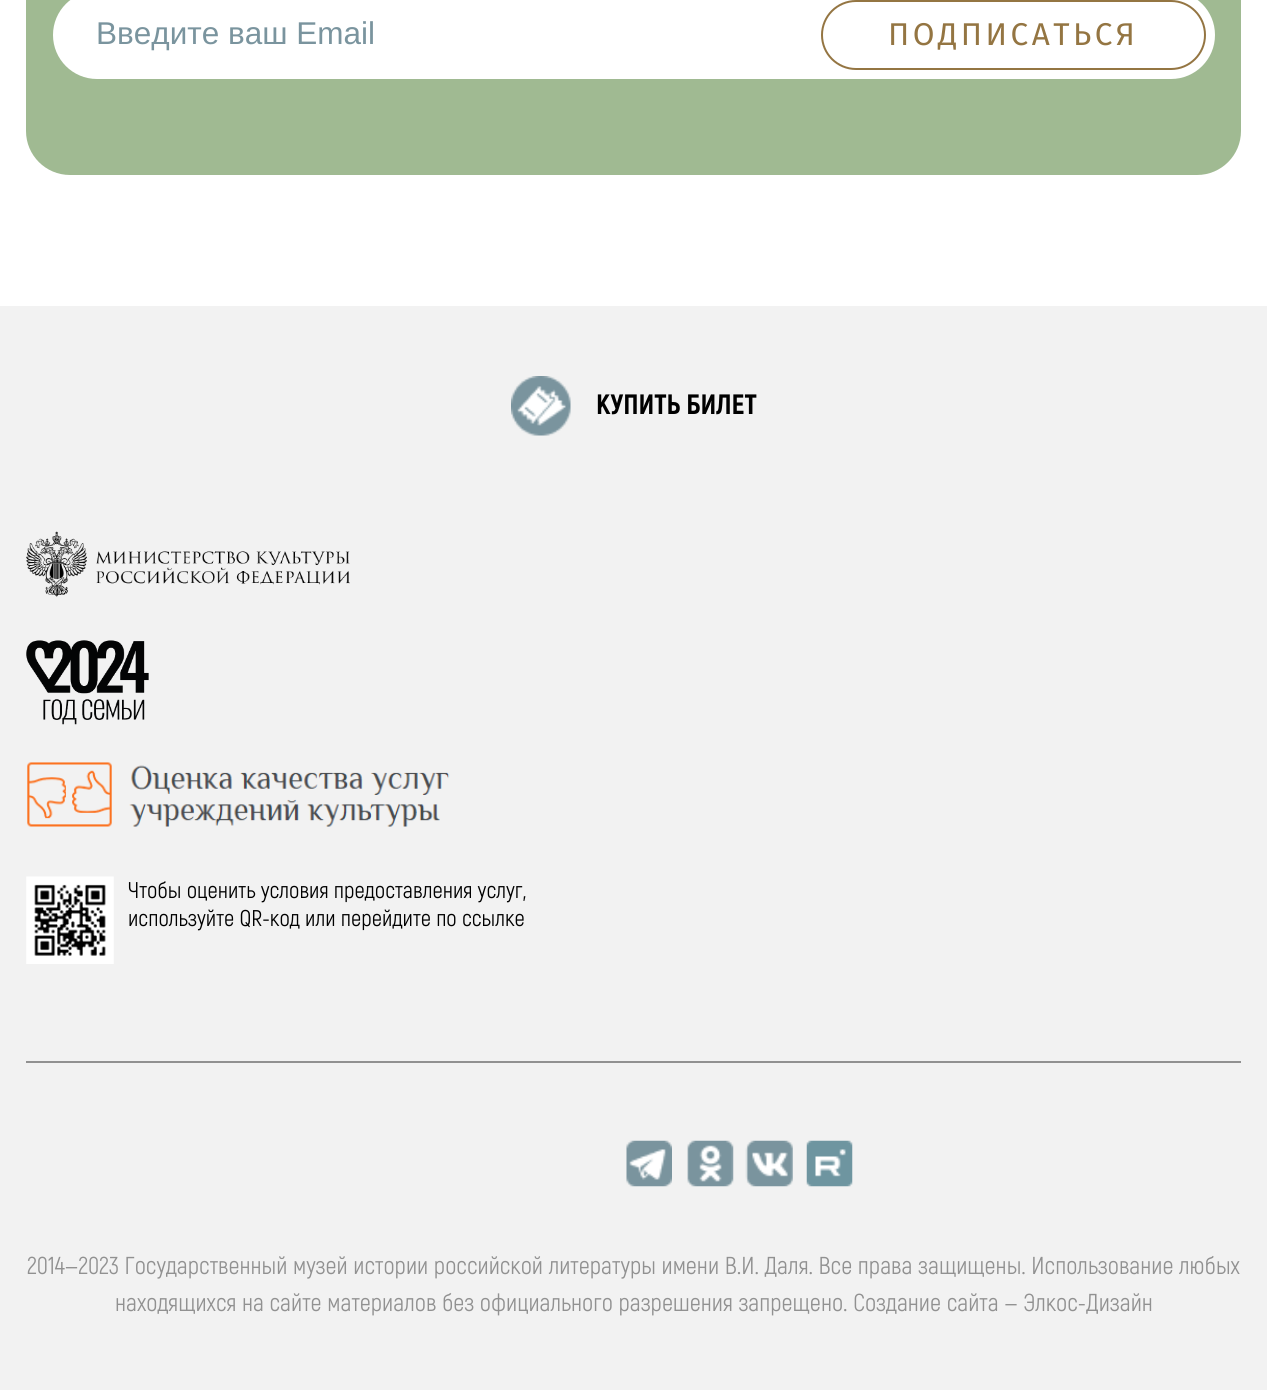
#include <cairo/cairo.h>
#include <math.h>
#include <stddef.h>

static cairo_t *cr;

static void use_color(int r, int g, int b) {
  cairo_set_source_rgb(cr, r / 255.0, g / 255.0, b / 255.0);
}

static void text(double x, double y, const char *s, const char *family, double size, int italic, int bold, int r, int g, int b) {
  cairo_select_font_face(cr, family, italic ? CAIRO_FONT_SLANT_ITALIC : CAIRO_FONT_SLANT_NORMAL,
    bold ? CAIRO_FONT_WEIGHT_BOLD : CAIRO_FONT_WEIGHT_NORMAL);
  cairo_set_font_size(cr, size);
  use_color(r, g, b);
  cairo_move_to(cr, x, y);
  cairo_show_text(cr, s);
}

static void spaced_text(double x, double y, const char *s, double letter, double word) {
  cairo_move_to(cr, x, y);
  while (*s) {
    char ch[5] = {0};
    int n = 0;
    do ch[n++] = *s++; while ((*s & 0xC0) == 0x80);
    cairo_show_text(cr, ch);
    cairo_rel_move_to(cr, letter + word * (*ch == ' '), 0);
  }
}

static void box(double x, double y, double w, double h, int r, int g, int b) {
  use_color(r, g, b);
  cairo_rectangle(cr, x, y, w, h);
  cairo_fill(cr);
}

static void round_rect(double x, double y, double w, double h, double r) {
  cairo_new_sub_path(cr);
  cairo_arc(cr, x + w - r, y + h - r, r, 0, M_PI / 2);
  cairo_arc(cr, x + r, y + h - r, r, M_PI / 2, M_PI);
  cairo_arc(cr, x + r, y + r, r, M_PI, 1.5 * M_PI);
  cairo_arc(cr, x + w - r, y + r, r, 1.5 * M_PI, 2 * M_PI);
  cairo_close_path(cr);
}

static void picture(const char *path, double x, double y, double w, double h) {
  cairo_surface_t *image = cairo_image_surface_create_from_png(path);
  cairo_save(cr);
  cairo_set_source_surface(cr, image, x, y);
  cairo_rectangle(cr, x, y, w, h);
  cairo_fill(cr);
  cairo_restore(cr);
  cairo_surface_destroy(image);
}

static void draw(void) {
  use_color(255, 255, 255);
  cairo_paint(cr);
  use_color(160, 186, 146);
  round_rect(26, -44, 1215, 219, 44);
  cairo_fill(cr);
  use_color(255, 255, 255);
  round_rect(53, -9, 1162, 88, 44);
  cairo_fill(cr);
  round_rect(822, 1, 383, 68, 34);
  use_color(148, 117, 66);
  cairo_stroke(cr);
  box(0, 306, 1267, 1084, 242, 242, 242);
  picture("img_01.png", 511, 376, 60, 60);
  picture("img_02.png", 26, 531, 324, 66);
  picture("img_03.png", 26, 640, 123, 85);
  picture("img_04.png", 27, 762, 423, 65);
  picture("img_05.png", 26, 876, 88, 88);
  box(26, 1061, 1215, 2, 145, 145, 145);
  picture("img_06.png", 626, 1140, 46, 47);
  picture("img_07.png", 687, 1140, 47, 47);
  picture("img_08.png", 745, 1140, 48, 47);
  picture("img_09.png", 806, 1140, 47, 47);
  text(96, 44, "Введите ваш Email", "Liberation Sans", 31.5, 0, 0, 122, 148, 158);
  cairo_select_font_face(cr, "Fira Sans", CAIRO_FONT_SLANT_NORMAL, CAIRO_FONT_WEIGHT_NORMAL);
  use_color(148, 117, 66);
  spaced_text(888, 45, "ПОДПИСАТЬСЯ", 3.5, 0);
  text(596, 414, "КУПИТЬ БИЛЕТ", "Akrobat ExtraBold", 28, 0, 0, 0, 0, 0);
  text(128, 898, "Чтобы оценить условия предоставления услуг,", "Akrobat", 22.75, 0, 0, 0, 0, 0);
  text(128, 926, "используйте QR-код или перейдите по ссылке", "Akrobat", 22.75, 0, 0, 0, 0, 0);
  text(27, 1274, "2014—2023 Государственный музей истории российской литературы имени В.И. Даля. Все права защищены. Использование любых", "Akrobat", 24.5, 0, 0, 145, 145, 145);
  text(115, 1311, "находящихся на сайте материалов без официального разрешения запрещено. Создание сайта — Элкос-Дизайн", "Akrobat", 24.5, 0, 0, 145, 145, 145);
}

int main(void) {
  cairo_surface_t *surface = cairo_image_surface_create(CAIRO_FORMAT_RGB24, 1267, 1390);
  cr = cairo_create(surface);
  cairo_font_options_t *options = cairo_font_options_create();
  cairo_font_options_set_hint_metrics(options, CAIRO_HINT_METRICS_OFF);
  cairo_font_options_set_hint_style(options, CAIRO_HINT_STYLE_NONE);
  cairo_set_font_options(cr, options);
  cairo_set_miter_limit(cr, 4);
  draw();
  cairo_surface_write_to_png(surface, "out.png");
  cairo_font_options_destroy(options);
  cairo_destroy(cr);
  cairo_surface_destroy(surface);
  return 0;
}
